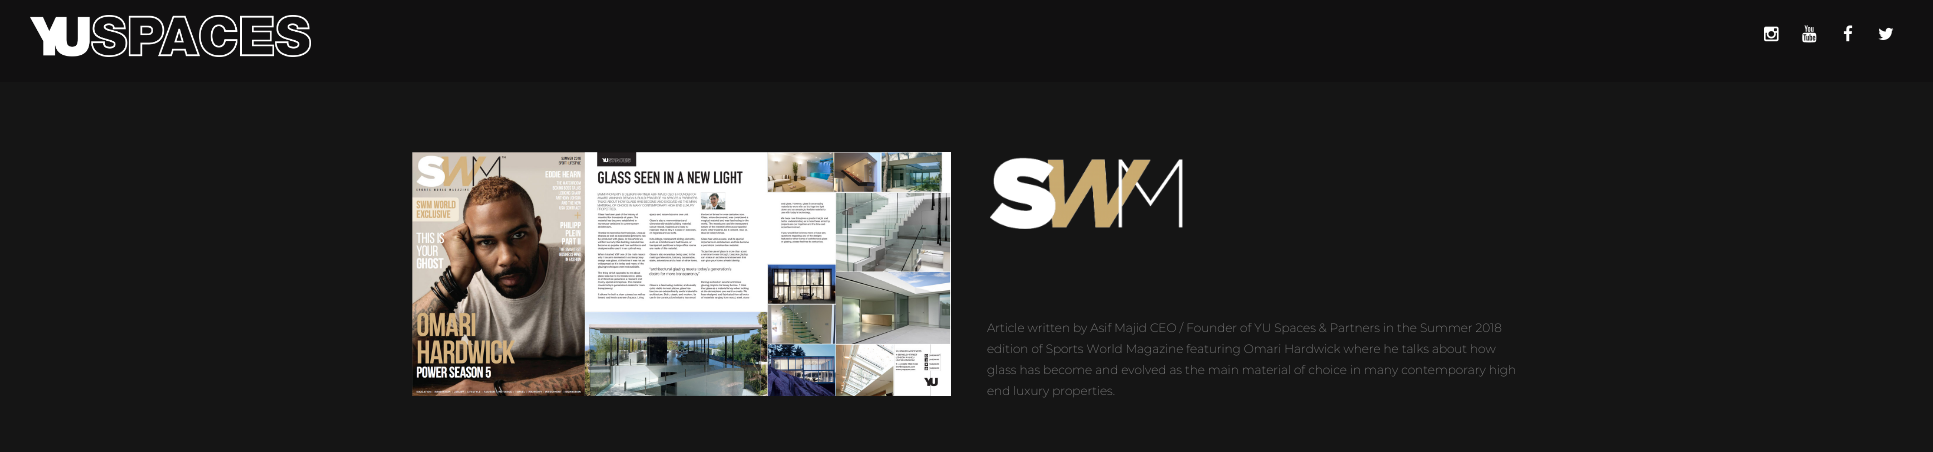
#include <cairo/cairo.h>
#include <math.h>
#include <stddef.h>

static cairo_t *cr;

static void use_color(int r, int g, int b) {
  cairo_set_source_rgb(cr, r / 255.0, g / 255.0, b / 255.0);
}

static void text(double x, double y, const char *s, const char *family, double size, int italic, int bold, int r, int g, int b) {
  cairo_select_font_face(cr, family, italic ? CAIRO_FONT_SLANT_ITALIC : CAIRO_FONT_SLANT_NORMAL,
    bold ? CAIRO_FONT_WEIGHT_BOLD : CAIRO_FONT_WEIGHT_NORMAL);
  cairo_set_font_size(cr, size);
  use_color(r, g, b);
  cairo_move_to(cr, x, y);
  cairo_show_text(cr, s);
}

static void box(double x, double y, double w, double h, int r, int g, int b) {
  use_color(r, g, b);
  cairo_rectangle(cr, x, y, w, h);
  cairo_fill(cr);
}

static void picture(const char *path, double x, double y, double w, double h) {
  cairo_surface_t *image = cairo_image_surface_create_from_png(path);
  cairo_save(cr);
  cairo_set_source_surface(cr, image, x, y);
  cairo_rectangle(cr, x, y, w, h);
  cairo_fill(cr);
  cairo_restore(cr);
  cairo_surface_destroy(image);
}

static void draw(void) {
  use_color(21, 21, 21);
  cairo_paint(cr);
  box(0, 0, 1933, 82, 17, 16, 17);
  picture("img_01.png", 30, 15, 281, 42);
  picture("img_02.png", 1764, 26, 15, 16);
  picture("img_03.png", 1802, 25, 15, 18);
  picture("img_04.png", 1843, 25, 10, 17);
  picture("img_05.png", 1878, 27, 16, 13);
  picture("img_06.png", 412, 152, 539, 244);
  picture("img_07.png", 990, 157, 193, 72);
  text(987, 332, "Article written by Asif Majid CEO / Founder of YU Spaces & Partners in the Summer 2018", "Montserrat ExtraLight", 12, 0, 0, 153, 153, 153);
  text(987, 353, "edition of Sports World Magazine featuring Omari Hardwick where he talks about how", "Montserrat ExtraLight", 12, 0, 0, 153, 153, 153);
  text(987, 374, "glass has become and evolved as the main material of choice in many contemporary high", "Montserrat ExtraLight", 12, 0, 0, 153, 153, 153);
  text(987, 395, "end luxury properties.", "Montserrat ExtraLight", 12, 0, 0, 153, 153, 153);
}

int main(void) {
  cairo_surface_t *surface = cairo_image_surface_create(CAIRO_FORMAT_RGB24, 1933, 452);
  cr = cairo_create(surface);
  cairo_font_options_t *options = cairo_font_options_create();
  cairo_font_options_set_hint_metrics(options, CAIRO_HINT_METRICS_OFF);
  cairo_font_options_set_hint_style(options, CAIRO_HINT_STYLE_NONE);
  cairo_set_font_options(cr, options);
  cairo_set_miter_limit(cr, 4);
  draw();
  cairo_surface_write_to_png(surface, "out.png");
  cairo_font_options_destroy(options);
  cairo_destroy(cr);
  cairo_surface_destroy(surface);
  return 0;
}
